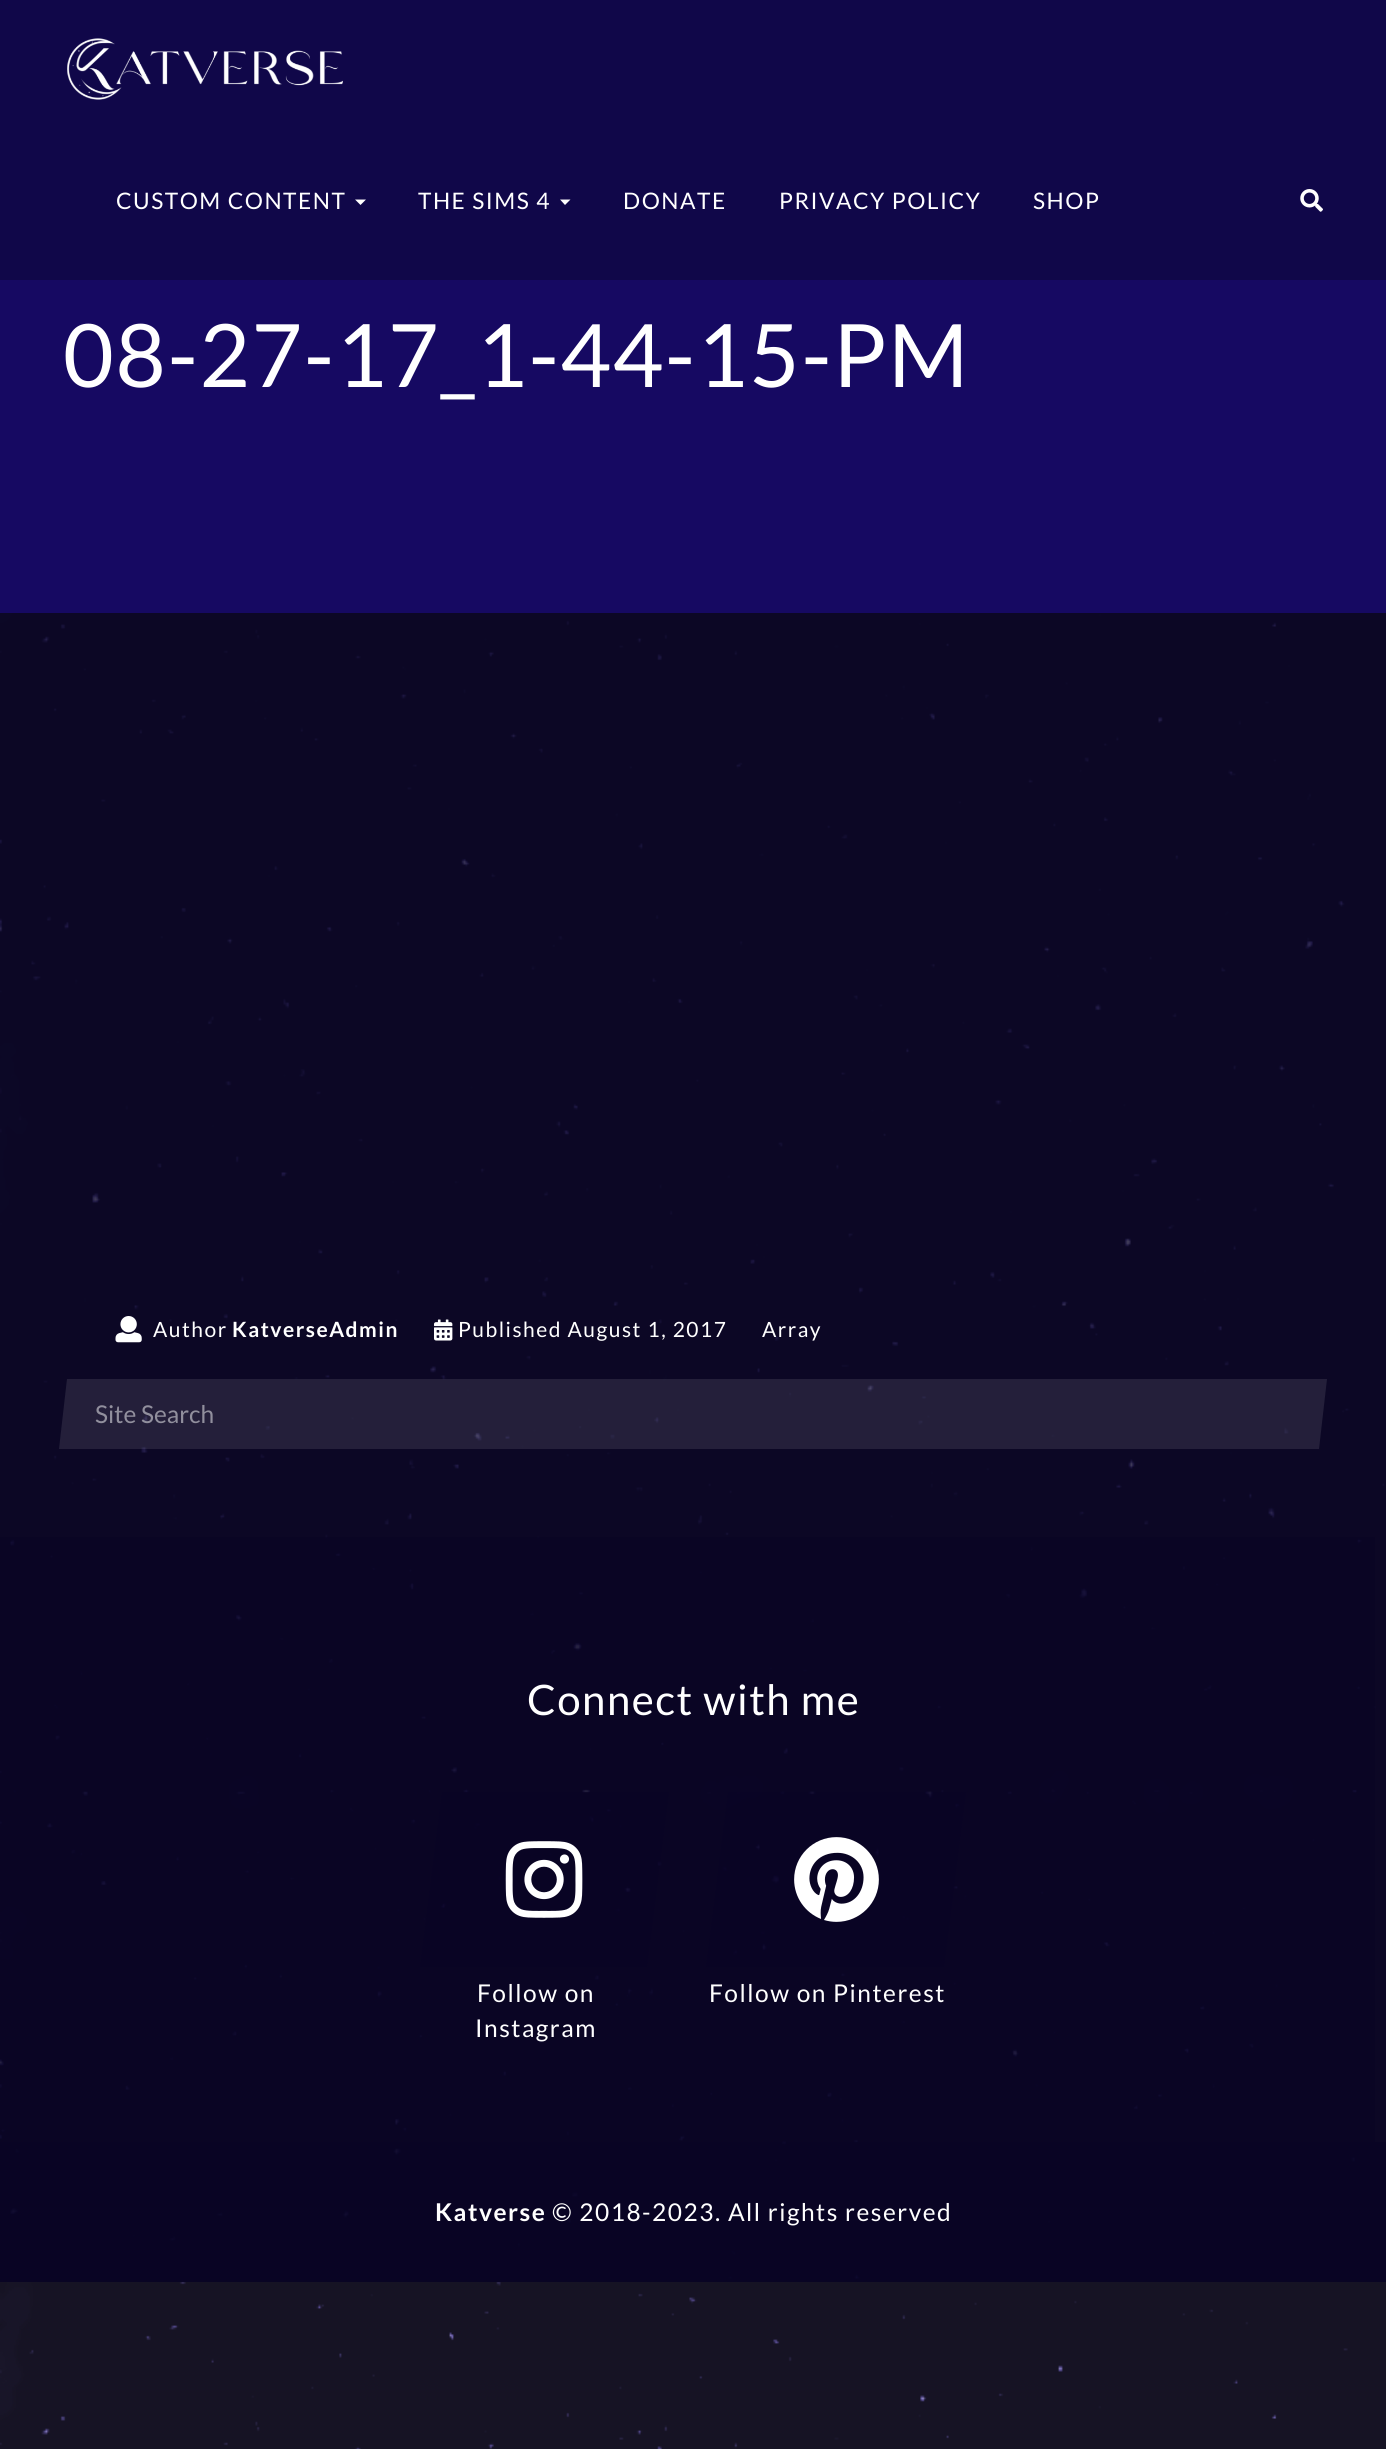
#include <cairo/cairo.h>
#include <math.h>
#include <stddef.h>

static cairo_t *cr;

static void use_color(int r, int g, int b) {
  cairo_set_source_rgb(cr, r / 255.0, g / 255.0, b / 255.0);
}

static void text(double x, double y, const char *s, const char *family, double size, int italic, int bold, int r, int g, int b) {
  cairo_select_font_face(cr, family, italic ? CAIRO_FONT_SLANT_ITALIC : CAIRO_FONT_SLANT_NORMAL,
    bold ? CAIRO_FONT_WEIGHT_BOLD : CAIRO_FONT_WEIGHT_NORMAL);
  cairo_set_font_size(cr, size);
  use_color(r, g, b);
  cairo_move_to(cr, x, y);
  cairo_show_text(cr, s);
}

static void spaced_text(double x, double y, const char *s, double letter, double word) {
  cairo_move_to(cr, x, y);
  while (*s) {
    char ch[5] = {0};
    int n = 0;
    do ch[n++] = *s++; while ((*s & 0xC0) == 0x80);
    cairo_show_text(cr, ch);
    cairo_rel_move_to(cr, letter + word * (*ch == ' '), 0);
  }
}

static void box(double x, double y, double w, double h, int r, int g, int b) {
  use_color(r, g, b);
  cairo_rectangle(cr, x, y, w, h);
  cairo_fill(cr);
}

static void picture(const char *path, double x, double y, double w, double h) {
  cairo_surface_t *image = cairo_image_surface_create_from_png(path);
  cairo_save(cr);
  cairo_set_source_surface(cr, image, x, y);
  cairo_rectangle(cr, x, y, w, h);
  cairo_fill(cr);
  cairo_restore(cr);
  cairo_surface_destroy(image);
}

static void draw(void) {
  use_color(255, 255, 255);
  cairo_paint(cr);
  picture("img_01.png", 0, 613, 1386, 1836);
  box(0, 0, 1386, 280, 16, 7, 73);
  picture("img_02.png", 67, 38, 276, 62);
  use_color(255, 255, 255);
  cairo_new_path(cr);
  cairo_move_to(cr, 355, 199.5);
  cairo_line_to(cr, 366, 199.5);
  cairo_line_to(cr, 360.5, 205);
  cairo_close_path(cr);
  cairo_fill(cr);
  cairo_new_path(cr);
  cairo_move_to(cr, 560, 199.5);
  cairo_line_to(cr, 570.5, 199.5);
  cairo_line_to(cr, 565, 205);
  cairo_close_path(cr);
  cairo_fill(cr);
  picture("img_03.png", 1300, 189, 23, 23);
  box(0, 280, 1386, 333, 22, 9, 98);
  picture("img_04.png", 115, 1316, 27, 27);
  picture("img_05.png", 434, 1319, 19, 22);
  cairo_set_source_rgba(cr, 1, 1, 1, 0.1);
  cairo_new_path(cr);
  cairo_move_to(cr, 67, 1379);
  cairo_line_to(cr, 1327, 1379);
  cairo_line_to(cr, 1319, 1449);
  cairo_line_to(cr, 59, 1449);
  cairo_close_path(cr);
  cairo_fill(cr);
  cairo_set_source_rgba(cr, 0.031, 0.012, 0.145, 0.45);
  cairo_rectangle(cr, 0, 1537, 1375, 605);
  cairo_fill(cr);
  cairo_set_source_rgba(cr, 0.031, 0.012, 0.145, 0.3);
  cairo_new_path(cr);
  cairo_move_to(cr, 442, 1792);
  cairo_line_to(cr, 669, 1792);
  cairo_line_to(cr, 647, 1967);
  cairo_line_to(cr, 420, 1967);
  cairo_close_path(cr);
  cairo_fill(cr);
  picture("img_06.png", 505, 1841, 78, 77);
  cairo_new_path(cr);
  cairo_move_to(cr, 728, 1792);
  cairo_line_to(cr, 966, 1792);
  cairo_line_to(cr, 944, 1967);
  cairo_line_to(cr, 706, 1967);
  cairo_close_path(cr);
  cairo_fill(cr);
  picture("img_07.png", 794, 1837, 85, 85);
  cairo_set_source_rgba(cr, 0.031, 0.012, 0.145, 0.7);
  cairo_rectangle(cr, 0, 2142, 1386, 140);
  cairo_fill(cr);
  cairo_select_font_face(cr, "Lato", CAIRO_FONT_SLANT_NORMAL, CAIRO_FONT_WEIGHT_NORMAL);
  cairo_set_font_size(cr, 22.75);
  use_color(255, 255, 255);
  spaced_text(116, 209, "CUSTOM CONTENT", 1.5, 0);
  spaced_text(418, 209, "THE SIMS 4", 1.5, 0);
  spaced_text(623, 209, "DONATE", 1.5, 0);
  spaced_text(779, 209, "PRIVACY POLICY", 1.5, 0);
  spaced_text(1033, 209, "SHOP", 1.5, 0);
  cairo_set_font_size(cr, 87.5);
  spaced_text(63, 387, "08-27-17_1-44-15-PM", 1.5, 0);
  cairo_set_font_size(cr, 21);
  spaced_text(153, 1337, "Author", 1.5, 0);
  cairo_select_font_face(cr, "Lato", CAIRO_FONT_SLANT_NORMAL, CAIRO_FONT_WEIGHT_BOLD);
  spaced_text(232, 1337, "KatverseAdmin", 1.5, 0);
  cairo_select_font_face(cr, "Lato", CAIRO_FONT_SLANT_NORMAL, CAIRO_FONT_WEIGHT_NORMAL);
  spaced_text(458, 1337, "Published August 1, 2017", 1.5, 0);
  spaced_text(762, 1337, "Array", 1.5, 0);
  text(95, 1423, "Site Search", "Lato", 24.5, 0, 0, 145, 143, 157);
  cairo_set_font_size(cr, 42);
  use_color(255, 255, 255);
  spaced_text(527, 1715, "Connect with me", 1.5, 0);
  cairo_set_font_size(cr, 24.5);
  spaced_text(477, 2002, "Follow on", 1.5, 0);
  spaced_text(475, 2037, "Instagram", 1.5, 0);
  spaced_text(709, 2002, "Follow on Pinterest", 1.5, 0);
  cairo_select_font_face(cr, "Lato", CAIRO_FONT_SLANT_NORMAL, CAIRO_FONT_WEIGHT_BOLD);
  spaced_text(435, 2221, "Katverse", 1.5, 0);
  cairo_select_font_face(cr, "Lato", CAIRO_FONT_SLANT_NORMAL, CAIRO_FONT_WEIGHT_NORMAL);
  spaced_text(552, 2221, "© 2018-2023. All rights reserved", 1.5, 0);
}

int main(void) {
  cairo_surface_t *surface = cairo_image_surface_create(CAIRO_FORMAT_RGB24, 1386, 2449);
  cr = cairo_create(surface);
  cairo_font_options_t *options = cairo_font_options_create();
  cairo_font_options_set_hint_metrics(options, CAIRO_HINT_METRICS_OFF);
  cairo_font_options_set_hint_style(options, CAIRO_HINT_STYLE_NONE);
  cairo_set_font_options(cr, options);
  cairo_set_miter_limit(cr, 4);
  draw();
  cairo_surface_write_to_png(surface, "out.png");
  cairo_font_options_destroy(options);
  cairo_destroy(cr);
  cairo_surface_destroy(surface);
  return 0;
}
